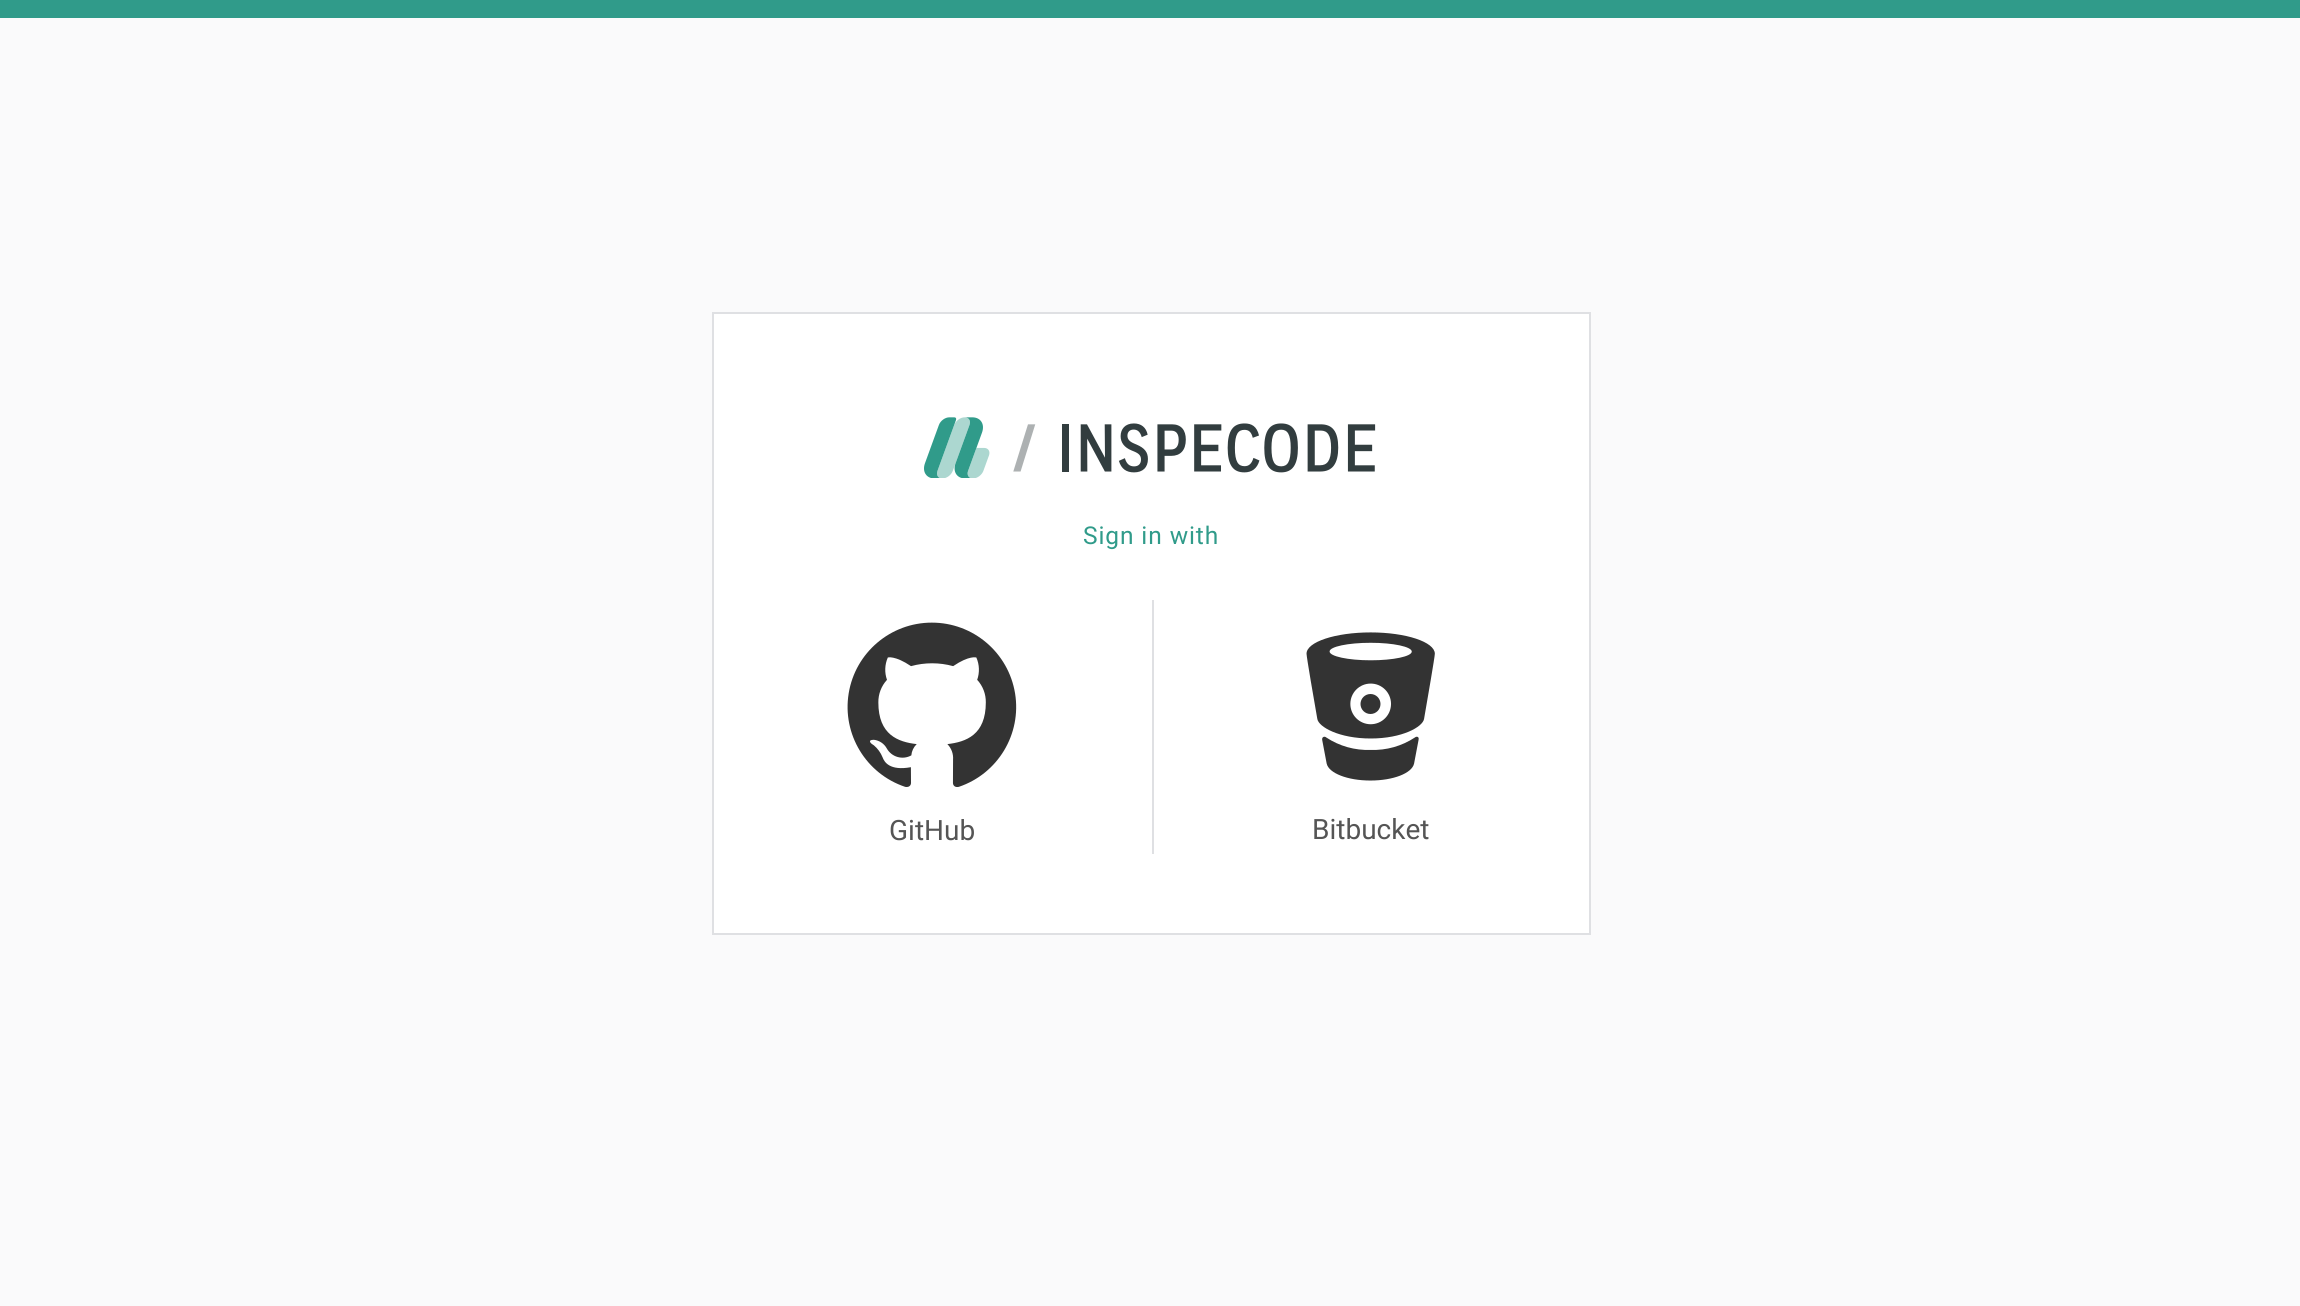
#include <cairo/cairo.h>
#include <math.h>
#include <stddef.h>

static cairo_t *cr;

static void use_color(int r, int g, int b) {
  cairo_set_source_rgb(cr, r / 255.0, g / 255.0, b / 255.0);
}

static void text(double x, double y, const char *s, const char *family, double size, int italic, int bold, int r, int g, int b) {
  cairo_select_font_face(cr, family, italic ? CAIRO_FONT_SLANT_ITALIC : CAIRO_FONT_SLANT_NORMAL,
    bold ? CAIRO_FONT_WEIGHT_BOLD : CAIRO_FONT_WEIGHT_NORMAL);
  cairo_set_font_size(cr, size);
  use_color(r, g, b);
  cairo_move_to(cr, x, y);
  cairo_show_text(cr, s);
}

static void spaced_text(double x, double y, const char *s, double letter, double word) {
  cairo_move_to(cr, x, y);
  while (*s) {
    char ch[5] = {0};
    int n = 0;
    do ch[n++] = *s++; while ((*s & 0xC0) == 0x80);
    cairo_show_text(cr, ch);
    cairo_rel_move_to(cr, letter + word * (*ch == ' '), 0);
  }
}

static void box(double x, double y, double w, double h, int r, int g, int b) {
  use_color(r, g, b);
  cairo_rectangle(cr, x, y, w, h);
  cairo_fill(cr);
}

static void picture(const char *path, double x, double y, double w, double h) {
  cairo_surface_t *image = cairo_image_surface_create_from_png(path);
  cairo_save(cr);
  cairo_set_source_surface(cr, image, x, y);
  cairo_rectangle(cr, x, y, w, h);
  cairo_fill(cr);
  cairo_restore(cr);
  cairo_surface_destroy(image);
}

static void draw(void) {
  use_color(250, 250, 251);
  cairo_paint(cr);
  box(0, 0, 2300, 18, 48, 155, 138);
  use_color(255, 255, 255);
  cairo_rectangle(cr, 713, 313, 877, 621);
  cairo_fill_preserve(cr);
  use_color(223, 224, 227);
  cairo_stroke(cr);
  picture("img_01.png", 924, 417, 452, 61);
  picture("img_02.png", 847, 622, 170, 165);
  box(1152, 600, 2, 254, 223, 224, 227);
  picture("img_03.png", 1306, 632, 129, 149);
  cairo_select_font_face(cr, "Roboto", CAIRO_FONT_SLANT_NORMAL, CAIRO_FONT_WEIGHT_NORMAL);
  cairo_set_font_size(cr, 24.5);
  use_color(48, 155, 138);
  spaced_text(1083, 544, "Sign in with", 0.9, 0);
  text(889, 840, "GitHub", "Roboto", 28, 0, 0, 85, 85, 85);
  text(1312, 839, "Bitbucket", "Roboto", 28, 0, 0, 85, 85, 85);
}

int main(void) {
  cairo_surface_t *surface = cairo_image_surface_create(CAIRO_FORMAT_RGB24, 2300, 1306);
  cr = cairo_create(surface);
  cairo_font_options_t *options = cairo_font_options_create();
  cairo_font_options_set_hint_metrics(options, CAIRO_HINT_METRICS_OFF);
  cairo_font_options_set_hint_style(options, CAIRO_HINT_STYLE_NONE);
  cairo_set_font_options(cr, options);
  cairo_set_miter_limit(cr, 4);
  draw();
  cairo_surface_write_to_png(surface, "out.png");
  cairo_font_options_destroy(options);
  cairo_destroy(cr);
  cairo_surface_destroy(surface);
  return 0;
}
